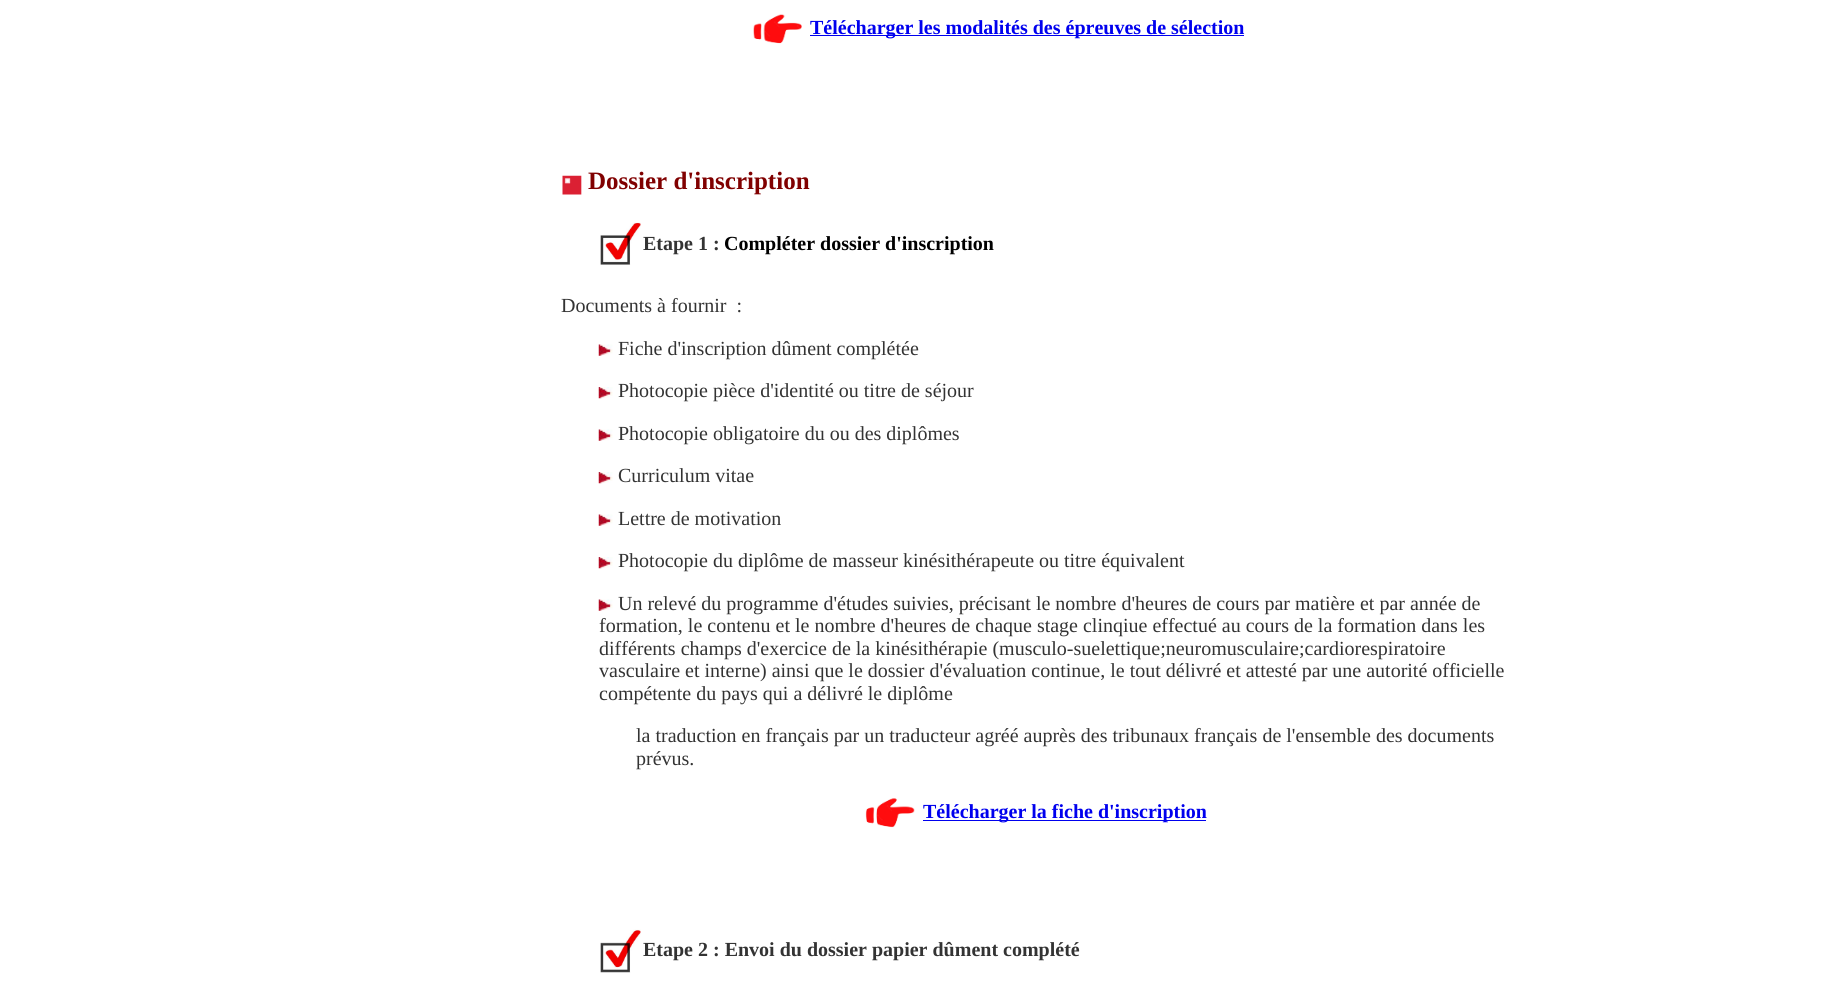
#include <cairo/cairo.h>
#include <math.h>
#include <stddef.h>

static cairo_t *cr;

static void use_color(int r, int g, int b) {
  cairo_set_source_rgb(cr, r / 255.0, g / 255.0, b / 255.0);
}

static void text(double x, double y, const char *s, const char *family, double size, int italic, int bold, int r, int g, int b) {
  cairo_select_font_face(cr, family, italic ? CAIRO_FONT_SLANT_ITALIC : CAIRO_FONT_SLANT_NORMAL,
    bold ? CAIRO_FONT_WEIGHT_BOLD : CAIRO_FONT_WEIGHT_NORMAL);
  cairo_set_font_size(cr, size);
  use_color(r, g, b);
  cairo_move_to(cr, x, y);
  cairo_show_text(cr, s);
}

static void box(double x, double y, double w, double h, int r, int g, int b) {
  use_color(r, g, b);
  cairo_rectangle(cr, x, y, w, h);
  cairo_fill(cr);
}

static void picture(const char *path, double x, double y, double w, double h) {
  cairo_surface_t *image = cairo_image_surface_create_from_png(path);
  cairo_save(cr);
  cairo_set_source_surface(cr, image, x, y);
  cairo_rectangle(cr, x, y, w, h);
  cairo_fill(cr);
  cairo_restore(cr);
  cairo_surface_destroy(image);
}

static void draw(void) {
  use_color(255, 255, 255);
  cairo_paint(cr);
  picture("img_01.png", 753, 14, 49, 30);
  box(810, 35, 434, 1, 0, 0, 238);
  picture("img_02.png", 562, 175, 20, 20);
  picture("img_03.png", 600, 222, 41, 43);
  picture("img_04.png", 598, 344, 15, 12);
  picture("img_05.png", 598, 387, 15, 12);
  picture("img_04.png", 598, 429, 15, 12);
  picture("img_05.png", 598, 472, 15, 12);
  picture("img_04.png", 598, 514, 15, 12);
  picture("img_05.png", 598, 557, 15, 12);
  picture("img_04.png", 598, 599, 15, 12);
  picture("img_06.png", 865, 798, 50, 30);
  box(923, 820, 283, 1, 0, 0, 238);
  picture("img_07.png", 600, 929, 41, 44);
  text(810, 34, "Télécharger les modalités des épreuves de sélection", "Liberation Serif", 20, 0, 1, 0, 0, 238);
  text(588, 189, "Dossier d'inscription", "Liberation Serif", 25, 0, 1, 128, 0, 0);
  text(643, 250, "Etape 1 :", "Liberation Serif", 20, 0, 1, 51, 51, 51);
  text(724, 250, "Compléter dossier d'inscription", "Liberation Serif", 20, 0, 1, 0, 0, 0);
  text(561, 312, "Documents à fournir  :", "Liberation Serif", 20, 0, 0, 51, 51, 51);
  text(618, 355, "Fiche d'inscription dûment complétée", "Liberation Serif", 20, 0, 0, 51, 51, 51);
  text(618, 397, "Photocopie pièce d'identité ou titre de séjour", "Liberation Serif", 20, 0, 0, 51, 51, 51);
  text(618, 440, "Photocopie obligatoire du ou des diplômes", "Liberation Serif", 20, 0, 0, 51, 51, 51);
  text(618, 482, "Curriculum vitae", "Liberation Serif", 20, 0, 0, 51, 51, 51);
  text(618, 525, "Lettre de motivation", "Liberation Serif", 20, 0, 0, 51, 51, 51);
  text(618, 567, "Photocopie du diplôme de masseur kinésithérapeute ou titre équivalent", "Liberation Serif", 20, 0, 0, 51, 51, 51);
  text(618, 610, "Un relevé du programme d'études suivies, précisant le nombre d'heures de cours par matière et par année de", "Liberation Serif", 20, 0, 0, 51, 51, 51);
  text(599, 632, "formation, le contenu et le nombre d'heures de chaque stage clinqiue effectué au cours de la formation dans les", "Liberation Serif", 20, 0, 0, 51, 51, 51);
  text(599, 655, "différents champs d'exercice de la kinésithérapie (musculo-suelettique;neuromusculaire;cardiorespiratoire", "Liberation Serif", 20, 0, 0, 51, 51, 51);
  text(599, 677, "vasculaire et interne) ainsi que le dossier d'évaluation continue, le tout délivré et attesté par une autorité officielle", "Liberation Serif", 20, 0, 0, 51, 51, 51);
  text(599, 700, "compétente du pays qui a délivré le diplôme", "Liberation Serif", 20, 0, 0, 51, 51, 51);
  text(636, 742, "la traduction en français par un traducteur agréé auprès des tribunaux français de l'ensemble des documents", "Liberation Serif", 20, 0, 0, 51, 51, 51);
  text(636, 765, "prévus.", "Liberation Serif", 20, 0, 0, 51, 51, 51);
  text(923, 818, "Télécharger la fiche d'inscription", "Liberation Serif", 20, 0, 1, 0, 0, 238);
  text(643, 956, "Etape 2 : Envoi du dossier papier dûment complété", "Liberation Serif", 20, 0, 1, 51, 51, 51);
}

int main(void) {
  cairo_surface_t *surface = cairo_image_surface_create(CAIRO_FORMAT_RGB24, 1841, 988);
  cr = cairo_create(surface);
  cairo_font_options_t *options = cairo_font_options_create();
  cairo_font_options_set_hint_metrics(options, CAIRO_HINT_METRICS_OFF);
  cairo_font_options_set_hint_style(options, CAIRO_HINT_STYLE_NONE);
  cairo_set_font_options(cr, options);
  cairo_set_miter_limit(cr, 4);
  draw();
  cairo_surface_write_to_png(surface, "out.png");
  cairo_font_options_destroy(options);
  cairo_destroy(cr);
  cairo_surface_destroy(surface);
  return 0;
}
